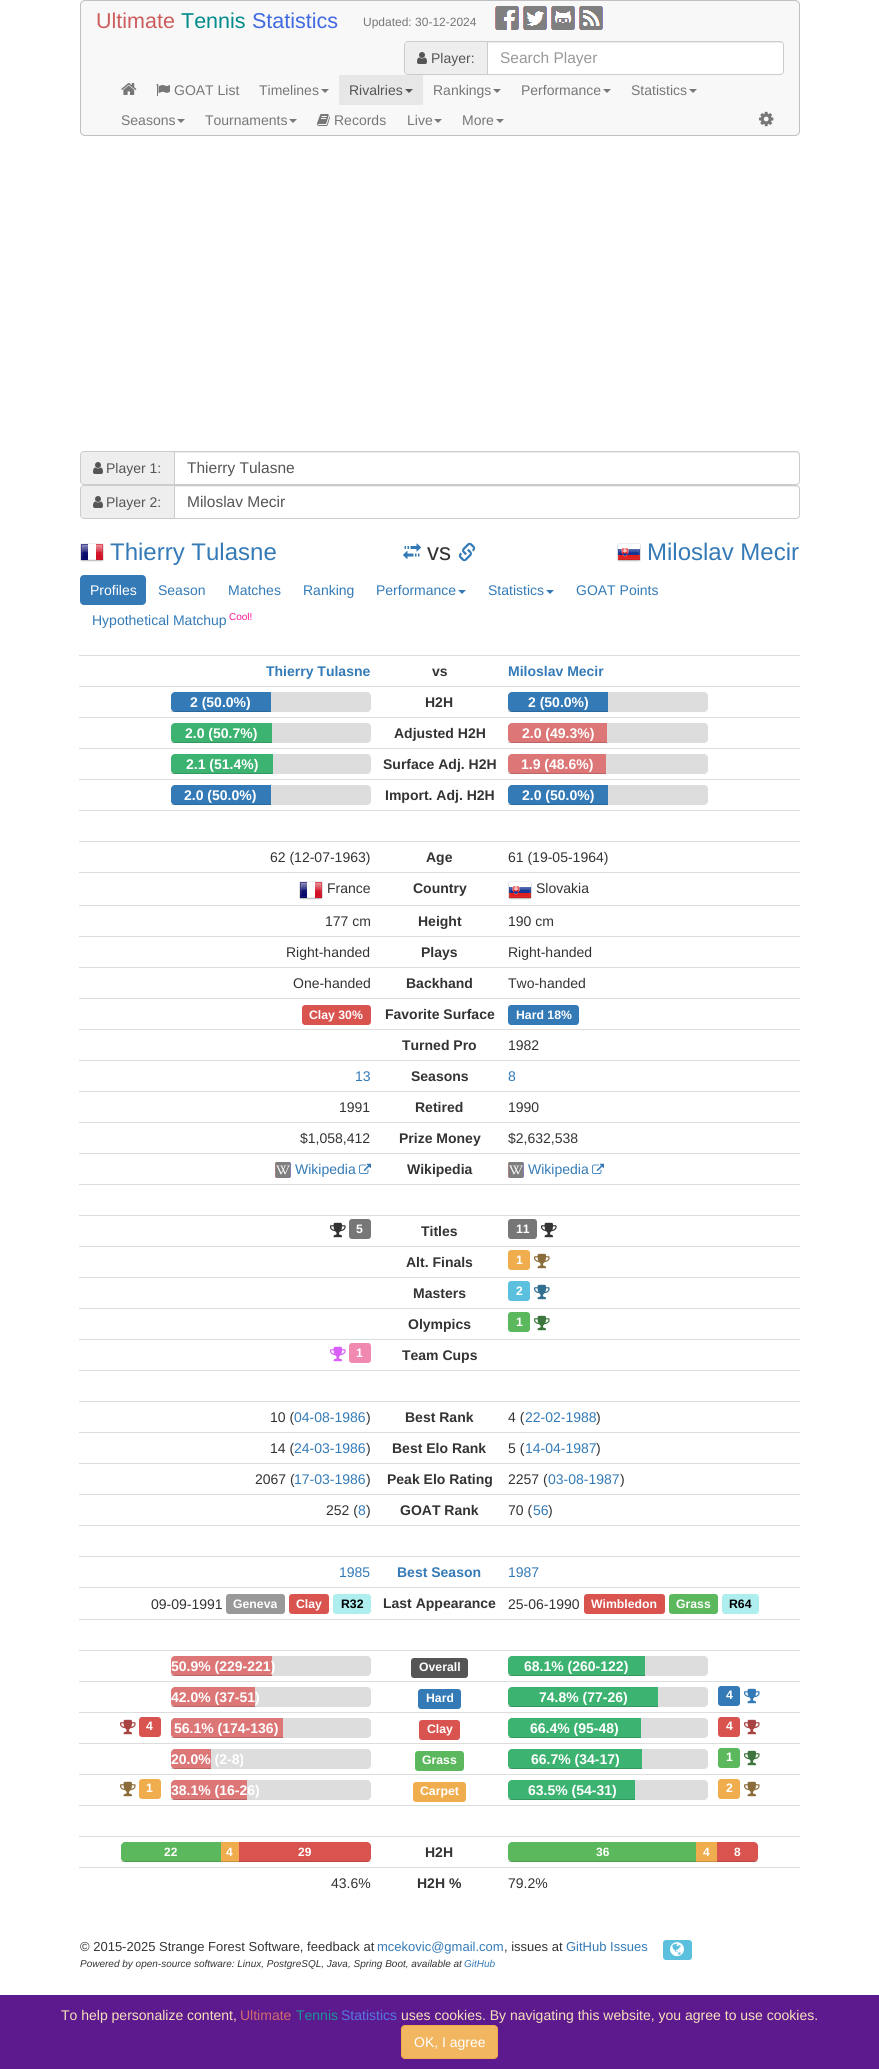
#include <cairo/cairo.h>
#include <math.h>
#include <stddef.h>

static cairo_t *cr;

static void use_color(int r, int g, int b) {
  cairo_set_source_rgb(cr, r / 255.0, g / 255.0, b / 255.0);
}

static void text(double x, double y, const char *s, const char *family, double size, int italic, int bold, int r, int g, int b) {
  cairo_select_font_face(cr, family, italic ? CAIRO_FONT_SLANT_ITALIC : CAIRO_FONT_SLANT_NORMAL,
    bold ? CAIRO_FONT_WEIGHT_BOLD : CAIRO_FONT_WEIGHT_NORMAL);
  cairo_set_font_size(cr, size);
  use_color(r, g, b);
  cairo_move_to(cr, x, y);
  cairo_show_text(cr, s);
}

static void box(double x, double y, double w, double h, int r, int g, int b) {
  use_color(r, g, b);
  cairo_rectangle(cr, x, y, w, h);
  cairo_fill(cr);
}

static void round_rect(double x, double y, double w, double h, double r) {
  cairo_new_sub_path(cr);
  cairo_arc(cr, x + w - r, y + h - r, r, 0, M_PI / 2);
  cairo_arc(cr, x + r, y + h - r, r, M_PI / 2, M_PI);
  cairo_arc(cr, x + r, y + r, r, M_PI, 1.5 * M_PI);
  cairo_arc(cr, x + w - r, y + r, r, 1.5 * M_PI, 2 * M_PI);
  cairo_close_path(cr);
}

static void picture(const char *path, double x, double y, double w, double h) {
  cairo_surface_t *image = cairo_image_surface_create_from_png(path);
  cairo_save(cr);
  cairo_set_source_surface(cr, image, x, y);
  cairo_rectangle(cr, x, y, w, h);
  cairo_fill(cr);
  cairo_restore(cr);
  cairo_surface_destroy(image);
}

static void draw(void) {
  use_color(255, 255, 255);
  cairo_paint(cr);
  use_color(248, 248, 248);
  round_rect(80.5, 0.5, 719, 135, 4.5);
  cairo_fill_preserve(cr);
  use_color(192, 192, 192);
  cairo_set_line_width(cr, 1);
  cairo_stroke(cr);
  picture("img_01.png", 495, 6, 24, 24);
  picture("img_02.png", 523, 6, 24, 24);
  picture("img_03.png", 551, 6, 24, 24);
  picture("img_04.png", 579, 6, 24, 24);
  use_color(238, 238, 238);
  cairo_new_path(cr);
  cairo_move_to(cr, 408, 41);
  cairo_line_to(cr, 487, 41);
  cairo_line_to(cr, 487, 75);
  cairo_line_to(cr, 408, 75);
  cairo_curve_to(cr, 406, 75, 404, 73, 404, 71);
  cairo_line_to(cr, 404, 45);
  cairo_curve_to(cr, 404, 43, 406, 41, 408, 41);
  cairo_close_path(cr);
  cairo_fill(cr);
  use_color(204, 204, 204);
  cairo_set_fill_rule(cr, CAIRO_FILL_RULE_EVEN_ODD);
  cairo_new_path(cr);
  cairo_move_to(cr, 408, 41);
  cairo_line_to(cr, 487, 41);
  cairo_line_to(cr, 487, 75);
  cairo_line_to(cr, 408, 75);
  cairo_curve_to(cr, 406, 75, 404, 73, 404, 71);
  cairo_line_to(cr, 404, 45);
  cairo_curve_to(cr, 404, 43, 406, 41, 408, 41);
  cairo_close_path(cr);
  cairo_move_to(cr, 408, 42);
  cairo_line_to(cr, 487, 42);
  cairo_line_to(cr, 487, 74);
  cairo_line_to(cr, 408, 74);
  cairo_curve_to(cr, 406, 74, 405, 73, 405, 71);
  cairo_line_to(cr, 405, 45);
  cairo_curve_to(cr, 405, 43, 406, 42, 408, 42);
  cairo_close_path(cr);
  cairo_fill(cr);
  picture("img_05.png", 417, 52, 10, 12);
  use_color(255, 255, 255);
  cairo_new_path(cr);
  cairo_move_to(cr, 487, 41);
  cairo_line_to(cr, 780, 41);
  cairo_curve_to(cr, 782, 41, 784, 43, 784, 45);
  cairo_line_to(cr, 784, 71);
  cairo_curve_to(cr, 784, 73, 782, 75, 780, 75);
  cairo_line_to(cr, 487, 75);
  cairo_close_path(cr);
  cairo_fill(cr);
  use_color(236, 236, 236);
  cairo_set_fill_rule(cr, CAIRO_FILL_RULE_WINDING);
  cairo_new_path(cr);
  cairo_move_to(cr, 488, 43);
  cairo_line_to(cr, 780, 43);
  cairo_curve_to(cr, 782, 43, 783, 44, 783, 46);
  cairo_curve_to(cr, 783, 44, 782, 42, 780, 42);
  cairo_line_to(cr, 488, 42);
  cairo_close_path(cr);
  cairo_fill(cr);
  cairo_new_path(cr);
  cairo_move_to(cr, 487.5, 41.5);
  cairo_line_to(cr, 780, 41.5);
  cairo_curve_to(cr, 782, 41.5, 783.5, 43, 783.5, 45);
  cairo_line_to(cr, 783.5, 71);
  cairo_curve_to(cr, 783.5, 73, 782, 74.5, 780, 74.5);
  cairo_line_to(cr, 487.5, 74.5);
  cairo_close_path(cr);
  use_color(204, 204, 204);
  cairo_stroke(cr);
  picture("img_06.png", 121, 83, 16, 12);
  picture("img_07.png", 156, 84, 14, 12);
  use_color(119, 119, 119);
  cairo_new_path(cr);
  cairo_move_to(cr, 321, 89);
  cairo_line_to(cr, 329, 89);
  cairo_line_to(cr, 325, 93);
  cairo_close_path(cr);
  cairo_fill(cr);
  box(339, 75, 84, 30, 231, 231, 231);
  use_color(85, 85, 85);
  cairo_new_path(cr);
  cairo_move_to(cr, 405, 89);
  cairo_line_to(cr, 413, 89);
  cairo_line_to(cr, 409, 93);
  cairo_close_path(cr);
  cairo_fill(cr);
  use_color(119, 119, 119);
  cairo_new_path(cr);
  cairo_move_to(cr, 493, 89);
  cairo_line_to(cr, 501, 89);
  cairo_line_to(cr, 497, 93);
  cairo_close_path(cr);
  cairo_fill(cr);
  cairo_new_path(cr);
  cairo_move_to(cr, 603, 89);
  cairo_line_to(cr, 611, 89);
  cairo_line_to(cr, 607, 93);
  cairo_close_path(cr);
  cairo_fill(cr);
  cairo_new_path(cr);
  cairo_move_to(cr, 689, 89);
  cairo_line_to(cr, 697, 89);
  cairo_line_to(cr, 693, 93);
  cairo_close_path(cr);
  cairo_fill(cr);
  cairo_new_path(cr);
  cairo_move_to(cr, 177, 119);
  cairo_line_to(cr, 185, 119);
  cairo_line_to(cr, 181, 123);
  cairo_close_path(cr);
  cairo_fill(cr);
  cairo_new_path(cr);
  cairo_move_to(cr, 289, 119);
  cairo_line_to(cr, 297, 119);
  cairo_line_to(cr, 293, 123);
  cairo_close_path(cr);
  cairo_fill(cr);
  picture("img_08.png", 317, 114, 13, 12);
  cairo_new_path(cr);
  cairo_move_to(cr, 434, 119);
  cairo_line_to(cr, 442, 119);
  cairo_line_to(cr, 438, 123);
  cairo_close_path(cr);
  cairo_fill(cr);
  cairo_new_path(cr);
  cairo_move_to(cr, 496, 119);
  cairo_line_to(cr, 504, 119);
  cairo_line_to(cr, 500, 123);
  cairo_close_path(cr);
  cairo_fill(cr);
  picture("img_09.png", 759, 111, 15, 16);
  use_color(238, 238, 238);
  cairo_new_path(cr);
  cairo_move_to(cr, 84, 451);
  cairo_line_to(cr, 174, 451);
  cairo_line_to(cr, 174, 485);
  cairo_line_to(cr, 84, 485);
  cairo_curve_to(cr, 82, 485, 80, 483, 80, 481);
  cairo_line_to(cr, 80, 455);
  cairo_curve_to(cr, 80, 453, 82, 451, 84, 451);
  cairo_close_path(cr);
  cairo_fill(cr);
  use_color(204, 204, 204);
  cairo_set_fill_rule(cr, CAIRO_FILL_RULE_EVEN_ODD);
  cairo_new_path(cr);
  cairo_move_to(cr, 84, 451);
  cairo_line_to(cr, 174, 451);
  cairo_line_to(cr, 174, 485);
  cairo_line_to(cr, 84, 485);
  cairo_curve_to(cr, 82, 485, 80, 483, 80, 481);
  cairo_line_to(cr, 80, 455);
  cairo_curve_to(cr, 80, 453, 82, 451, 84, 451);
  cairo_close_path(cr);
  cairo_move_to(cr, 84, 452);
  cairo_line_to(cr, 174, 452);
  cairo_line_to(cr, 174, 484);
  cairo_line_to(cr, 84, 484);
  cairo_curve_to(cr, 82, 484, 81, 483, 81, 481);
  cairo_line_to(cr, 81, 455);
  cairo_curve_to(cr, 81, 453, 82, 452, 84, 452);
  cairo_close_path(cr);
  cairo_fill(cr);
  picture("img_05.png", 93, 462, 10, 12);
  use_color(236, 236, 236);
  cairo_set_fill_rule(cr, CAIRO_FILL_RULE_WINDING);
  cairo_new_path(cr);
  cairo_move_to(cr, 175, 453);
  cairo_line_to(cr, 796, 453);
  cairo_curve_to(cr, 798, 453, 799, 454, 799, 456);
  cairo_line_to(cr, 799, 455);
  cairo_curve_to(cr, 799, 453, 798, 452, 796, 452);
  cairo_line_to(cr, 175, 452);
  cairo_close_path(cr);
  cairo_fill(cr);
  cairo_new_path(cr);
  cairo_move_to(cr, 174.5, 451.5);
  cairo_line_to(cr, 796, 451.5);
  cairo_curve_to(cr, 798, 451.5, 799.5, 453, 799.5, 455);
  cairo_line_to(cr, 799.5, 481);
  cairo_curve_to(cr, 799.5, 483, 798, 484.5, 796, 484.5);
  cairo_line_to(cr, 174.5, 484.5);
  cairo_close_path(cr);
  use_color(204, 204, 204);
  cairo_stroke(cr);
  use_color(238, 238, 238);
  cairo_new_path(cr);
  cairo_move_to(cr, 84, 485);
  cairo_line_to(cr, 174, 485);
  cairo_line_to(cr, 174, 519);
  cairo_line_to(cr, 84, 519);
  cairo_curve_to(cr, 82, 519, 80, 517, 80, 515);
  cairo_line_to(cr, 80, 489);
  cairo_curve_to(cr, 80, 487, 82, 485, 84, 485);
  cairo_close_path(cr);
  cairo_fill(cr);
  use_color(204, 204, 204);
  cairo_set_fill_rule(cr, CAIRO_FILL_RULE_EVEN_ODD);
  cairo_new_path(cr);
  cairo_move_to(cr, 84, 485);
  cairo_line_to(cr, 174, 485);
  cairo_line_to(cr, 174, 519);
  cairo_line_to(cr, 84, 519);
  cairo_curve_to(cr, 82, 519, 80, 517, 80, 515);
  cairo_line_to(cr, 80, 489);
  cairo_curve_to(cr, 80, 487, 82, 485, 84, 485);
  cairo_close_path(cr);
  cairo_move_to(cr, 84, 486);
  cairo_line_to(cr, 174, 486);
  cairo_line_to(cr, 174, 518);
  cairo_line_to(cr, 84, 518);
  cairo_curve_to(cr, 82, 518, 81, 517, 81, 515);
  cairo_line_to(cr, 81, 489);
  cairo_curve_to(cr, 81, 487, 82, 486, 84, 486);
  cairo_close_path(cr);
  cairo_fill(cr);
  picture("img_05.png", 93, 496, 10, 12);
  use_color(236, 236, 236);
  cairo_set_fill_rule(cr, CAIRO_FILL_RULE_WINDING);
  cairo_new_path(cr);
  cairo_move_to(cr, 175, 487);
  cairo_line_to(cr, 796, 487);
  cairo_curve_to(cr, 798, 487, 799, 488, 799, 490);
  cairo_line_to(cr, 799, 489);
  cairo_curve_to(cr, 799, 487, 798, 486, 796, 486);
  cairo_line_to(cr, 175, 486);
  cairo_close_path(cr);
  cairo_fill(cr);
  cairo_new_path(cr);
  cairo_move_to(cr, 174.5, 485.5);
  cairo_line_to(cr, 796, 485.5);
  cairo_curve_to(cr, 798, 485.5, 799.5, 487, 799.5, 489);
  cairo_line_to(cr, 799.5, 515);
  cairo_curve_to(cr, 799.5, 517, 798, 518.5, 796, 518.5);
  cairo_line_to(cr, 174.5, 518.5);
  cairo_close_path(cr);
  use_color(204, 204, 204);
  cairo_stroke(cr);
  picture("img_10.png", 80, 543, 24, 19);
  picture("img_11.png", 403, 543, 18, 17);
  picture("img_12.png", 458, 542, 18, 20);
  picture("img_13.png", 617, 543, 24, 19);
  use_color(51, 122, 183);
  round_rect(80, 575, 66, 30, 4);
  cairo_fill(cr);
  cairo_new_path(cr);
  cairo_move_to(cr, 458, 590);
  cairo_line_to(cr, 466, 590);
  cairo_line_to(cr, 462, 594);
  cairo_close_path(cr);
  cairo_fill(cr);
  cairo_new_path(cr);
  cairo_move_to(cr, 546, 590);
  cairo_line_to(cr, 554, 590);
  cairo_line_to(cr, 550, 594);
  cairo_close_path(cr);
  cairo_fill(cr);
  box(79, 655, 721, 1, 221, 221, 221);
  round_rect(171, 692, 200, 20, 4);
  cairo_fill(cr);
  use_color(51, 122, 183);
  cairo_new_path(cr);
  cairo_move_to(cr, 175, 692);
  cairo_line_to(cr, 271, 692);
  cairo_line_to(cr, 271, 712);
  cairo_line_to(cr, 175, 712);
  cairo_curve_to(cr, 173, 712, 171, 710, 171, 708);
  cairo_line_to(cr, 171, 696);
  cairo_curve_to(cr, 171, 694, 173, 692, 175, 692);
  cairo_close_path(cr);
  cairo_fill(cr);
  cairo_set_source_rgba(cr, 0, 0, 0, 0.15);
  cairo_rectangle(cr, 171, 711, 100, 1);
  cairo_fill(cr);
  box(79, 686, 721, 1, 221, 221, 221);
  round_rect(508, 692, 200, 20, 4);
  cairo_fill(cr);
  use_color(51, 122, 183);
  cairo_new_path(cr);
  cairo_move_to(cr, 512, 692);
  cairo_line_to(cr, 608, 692);
  cairo_line_to(cr, 608, 712);
  cairo_line_to(cr, 512, 712);
  cairo_curve_to(cr, 510, 712, 508, 710, 508, 708);
  cairo_line_to(cr, 508, 696);
  cairo_curve_to(cr, 508, 694, 510, 692, 512, 692);
  cairo_close_path(cr);
  cairo_fill(cr);
  cairo_set_source_rgba(cr, 0, 0, 0, 0.15);
  cairo_rectangle(cr, 508, 711, 100, 1);
  cairo_fill(cr);
  use_color(221, 221, 221);
  round_rect(171, 723, 200, 20, 4);
  cairo_fill(cr);
  use_color(60, 179, 113);
  cairo_new_path(cr);
  cairo_move_to(cr, 175, 723);
  cairo_line_to(cr, 272, 723);
  cairo_line_to(cr, 272, 743);
  cairo_line_to(cr, 175, 743);
  cairo_curve_to(cr, 173, 743, 171, 741, 171, 739);
  cairo_line_to(cr, 171, 727);
  cairo_curve_to(cr, 171, 725, 173, 723, 175, 723);
  cairo_close_path(cr);
  cairo_fill(cr);
  cairo_set_source_rgba(cr, 0, 0, 0, 0.15);
  cairo_rectangle(cr, 171, 742, 101, 1);
  cairo_fill(cr);
  box(79, 717, 721, 1, 221, 221, 221);
  round_rect(508, 723, 200, 20, 4);
  cairo_fill(cr);
  use_color(221, 119, 119);
  cairo_new_path(cr);
  cairo_move_to(cr, 512, 723);
  cairo_line_to(cr, 607, 723);
  cairo_line_to(cr, 607, 743);
  cairo_line_to(cr, 512, 743);
  cairo_curve_to(cr, 510, 743, 508, 741, 508, 739);
  cairo_line_to(cr, 508, 727);
  cairo_curve_to(cr, 508, 725, 510, 723, 512, 723);
  cairo_close_path(cr);
  cairo_fill(cr);
  cairo_set_source_rgba(cr, 0, 0, 0, 0.15);
  cairo_rectangle(cr, 508, 742, 99, 1);
  cairo_fill(cr);
  use_color(221, 221, 221);
  round_rect(171, 754, 200, 20, 4);
  cairo_fill(cr);
  use_color(60, 179, 113);
  cairo_new_path(cr);
  cairo_move_to(cr, 175, 754);
  cairo_line_to(cr, 273, 754);
  cairo_line_to(cr, 273, 774);
  cairo_line_to(cr, 175, 774);
  cairo_curve_to(cr, 173, 774, 171, 772, 171, 770);
  cairo_line_to(cr, 171, 758);
  cairo_curve_to(cr, 171, 756, 173, 754, 175, 754);
  cairo_close_path(cr);
  cairo_fill(cr);
  cairo_set_source_rgba(cr, 0, 0, 0, 0.15);
  cairo_rectangle(cr, 171, 773, 102, 1);
  cairo_fill(cr);
  box(79, 748, 721, 1, 221, 221, 221);
  round_rect(508, 754, 200, 20, 4);
  cairo_fill(cr);
  use_color(221, 119, 119);
  cairo_new_path(cr);
  cairo_move_to(cr, 512, 754);
  cairo_line_to(cr, 606, 754);
  cairo_line_to(cr, 606, 774);
  cairo_line_to(cr, 512, 774);
  cairo_curve_to(cr, 510, 774, 508, 772, 508, 770);
  cairo_line_to(cr, 508, 758);
  cairo_curve_to(cr, 508, 756, 510, 754, 512, 754);
  cairo_close_path(cr);
  cairo_fill(cr);
  cairo_set_source_rgba(cr, 0, 0, 0, 0.15);
  cairo_rectangle(cr, 508, 773, 98, 1);
  cairo_fill(cr);
  use_color(221, 221, 221);
  round_rect(171, 785, 200, 20, 4);
  cairo_fill(cr);
  use_color(51, 122, 183);
  cairo_new_path(cr);
  cairo_move_to(cr, 175, 785);
  cairo_line_to(cr, 271, 785);
  cairo_line_to(cr, 271, 805);
  cairo_line_to(cr, 175, 805);
  cairo_curve_to(cr, 173, 805, 171, 803, 171, 801);
  cairo_line_to(cr, 171, 789);
  cairo_curve_to(cr, 171, 787, 173, 785, 175, 785);
  cairo_close_path(cr);
  cairo_fill(cr);
  cairo_set_source_rgba(cr, 0, 0, 0, 0.15);
  cairo_rectangle(cr, 171, 804, 100, 1);
  cairo_fill(cr);
  box(79, 779, 721, 1, 221, 221, 221);
  round_rect(508, 785, 200, 20, 4);
  cairo_fill(cr);
  use_color(51, 122, 183);
  cairo_new_path(cr);
  cairo_move_to(cr, 512, 785);
  cairo_line_to(cr, 608, 785);
  cairo_line_to(cr, 608, 805);
  cairo_line_to(cr, 512, 805);
  cairo_curve_to(cr, 510, 805, 508, 803, 508, 801);
  cairo_line_to(cr, 508, 789);
  cairo_curve_to(cr, 508, 787, 510, 785, 512, 785);
  cairo_close_path(cr);
  cairo_fill(cr);
  cairo_set_source_rgba(cr, 0, 0, 0, 0.15);
  cairo_rectangle(cr, 508, 804, 100, 1);
  cairo_fill(cr);
  box(79, 810, 721, 1, 221, 221, 221);
  box(79, 841, 721, 1, 221, 221, 221);
  picture("img_10.png", 299, 881, 24, 19);
  box(79, 872, 721, 1, 221, 221, 221);
  picture("img_13.png", 508, 881, 24, 19);
  box(79, 905, 721, 1, 221, 221, 221);
  box(79, 936, 721, 1, 221, 221, 221);
  box(79, 967, 721, 1, 221, 221, 221);
  use_color(217, 83, 79);
  cairo_new_path(cr);
  cairo_move_to(cr, 305, 1005);
  cairo_line_to(cr, 335, 1005);
  cairo_line_to(cr, 335, 1025);
  cairo_line_to(cr, 305, 1025);
  cairo_curve_to(cr, 303.5, 1025, 302, 1023.5, 302, 1022);
  cairo_line_to(cr, 302, 1008);
  cairo_curve_to(cr, 302, 1006.5, 303.5, 1005, 305, 1005);
  cairo_close_path(cr);
  cairo_fill(cr);
  box(335, 1005, 4, 20, 217, 83, 79);
  cairo_new_path(cr);
  cairo_move_to(cr, 339, 1005);
  cairo_line_to(cr, 368, 1005);
  cairo_curve_to(cr, 369.5, 1005, 371, 1006.5, 371, 1008);
  cairo_line_to(cr, 371, 1022);
  cairo_curve_to(cr, 371, 1023.5, 369.5, 1025, 368, 1025);
  cairo_line_to(cr, 339, 1025);
  cairo_close_path(cr);
  cairo_fill(cr);
  box(79, 998, 721, 1, 221, 221, 221);
  use_color(51, 122, 183);
  cairo_new_path(cr);
  cairo_move_to(cr, 511, 1005);
  cairo_line_to(cr, 544, 1005);
  cairo_line_to(cr, 544, 1025);
  cairo_line_to(cr, 511, 1025);
  cairo_curve_to(cr, 509.5, 1025, 508, 1023.5, 508, 1022);
  cairo_line_to(cr, 508, 1008);
  cairo_curve_to(cr, 508, 1006.5, 509.5, 1005, 511, 1005);
  cairo_close_path(cr);
  cairo_fill(cr);
  box(544, 1005, 3, 20, 51, 122, 183);
  cairo_new_path(cr);
  cairo_move_to(cr, 547, 1005);
  cairo_line_to(cr, 576, 1005);
  cairo_curve_to(cr, 577.5, 1005, 579, 1006.5, 579, 1008);
  cairo_line_to(cr, 579, 1022);
  cairo_curve_to(cr, 579, 1023.5, 577.5, 1025, 576, 1025);
  cairo_line_to(cr, 547, 1025);
  cairo_close_path(cr);
  cairo_fill(cr);
  box(79, 1029, 721, 1, 221, 221, 221);
  box(79, 1060, 721, 1, 221, 221, 221);
  box(79, 1091, 721, 1, 221, 221, 221);
  box(79, 1122, 721, 1, 221, 221, 221);
  picture("img_14.png", 275, 1162, 16, 16);
  picture("img_15.png", 359, 1163, 12, 11);
  box(79, 1153, 721, 1, 221, 221, 221);
  picture("img_14.png", 508, 1162, 16, 16);
  picture("img_15.png", 592, 1163, 12, 11);
  box(79, 1184, 721, 1, 221, 221, 221);
  picture("img_16.png", 330, 1222, 16, 16);
  use_color(119, 119, 119);
  round_rect(349, 1219, 22, 20, 3);
  cairo_fill(cr);
  box(79, 1215, 721, 1, 221, 221, 221);
  use_color(119, 119, 119);
  round_rect(508, 1219, 29, 20, 3);
  cairo_fill(cr);
  picture("img_16.png", 541, 1222, 16, 16);
  box(79, 1246, 721, 1, 221, 221, 221);
  use_color(240, 173, 78);
  round_rect(508, 1250, 22, 20, 3);
  cairo_fill(cr);
  picture("img_17.png", 534, 1253, 16, 16);
  box(79, 1277, 721, 1, 221, 221, 221);
  use_color(91, 192, 222);
  round_rect(508, 1281, 22, 20, 3);
  cairo_fill(cr);
  picture("img_18.png", 534, 1284, 16, 16);
  box(79, 1308, 721, 1, 221, 221, 221);
  use_color(92, 184, 92);
  round_rect(508, 1312, 22, 20, 3);
  cairo_fill(cr);
  picture("img_19.png", 534, 1315, 16, 16);
  box(79, 1339, 721, 1, 221, 221, 221);
  picture("img_20.png", 330, 1346, 16, 16);
  use_color(240, 136, 176);
  round_rect(349, 1343, 22, 20, 3);
  cairo_fill(cr);
  box(79, 1370, 721, 1, 221, 221, 221);
  box(79, 1401, 721, 1, 221, 221, 221);
  box(79, 1432, 721, 1, 221, 221, 221);
  box(79, 1463, 721, 1, 221, 221, 221);
  box(79, 1494, 721, 1, 221, 221, 221);
  box(79, 1525, 721, 1, 221, 221, 221);
  box(79, 1556, 721, 1, 221, 221, 221);
  use_color(153, 153, 153);
  round_rect(226, 1594, 59, 20, 3);
  cairo_fill(cr);
  use_color(217, 83, 79);
  round_rect(289, 1594, 40, 20, 3);
  cairo_fill(cr);
  use_color(175, 238, 238);
  round_rect(333, 1594, 38, 20, 3);
  cairo_fill(cr);
  box(79, 1587, 721, 1, 221, 221, 221);
  use_color(217, 83, 79);
  round_rect(584, 1594, 81, 20, 3);
  cairo_fill(cr);
  use_color(92, 184, 92);
  round_rect(669, 1594, 49, 20, 3);
  cairo_fill(cr);
  use_color(175, 238, 238);
  round_rect(722, 1594, 37, 20, 3);
  cairo_fill(cr);
  box(79, 1619, 721, 1, 221, 221, 221);
  box(79, 1650, 721, 1, 221, 221, 221);
  round_rect(171, 1656, 200, 20, 4);
  cairo_fill(cr);
  use_color(221, 119, 119);
  cairo_new_path(cr);
  cairo_move_to(cr, 175, 1656);
  cairo_line_to(cr, 272, 1656);
  cairo_line_to(cr, 272, 1676);
  cairo_line_to(cr, 175, 1676);
  cairo_curve_to(cr, 173, 1676, 171, 1674, 171, 1672);
  cairo_line_to(cr, 171, 1660);
  cairo_curve_to(cr, 171, 1658, 173, 1656, 175, 1656);
  cairo_close_path(cr);
  cairo_fill(cr);
  cairo_set_source_rgba(cr, 0, 0, 0, 0.15);
  cairo_rectangle(cr, 171, 1675, 101, 1);
  cairo_fill(cr);
  use_color(85, 85, 85);
  round_rect(411, 1658, 57, 20, 3);
  cairo_fill(cr);
  use_color(221, 221, 221);
  round_rect(508, 1656, 200, 20, 4);
  cairo_fill(cr);
  use_color(60, 179, 113);
  cairo_new_path(cr);
  cairo_move_to(cr, 512, 1656);
  cairo_line_to(cr, 645, 1656);
  cairo_line_to(cr, 645, 1676);
  cairo_line_to(cr, 512, 1676);
  cairo_curve_to(cr, 510, 1676, 508, 1674, 508, 1672);
  cairo_line_to(cr, 508, 1660);
  cairo_curve_to(cr, 508, 1658, 510, 1656, 512, 1656);
  cairo_close_path(cr);
  cairo_fill(cr);
  cairo_set_source_rgba(cr, 0, 0, 0, 0.15);
  cairo_rectangle(cr, 508, 1675, 137, 1);
  cairo_fill(cr);
  use_color(221, 221, 221);
  round_rect(171, 1687, 200, 20, 4);
  cairo_fill(cr);
  use_color(221, 119, 119);
  cairo_new_path(cr);
  cairo_move_to(cr, 175, 1687);
  cairo_line_to(cr, 255, 1687);
  cairo_line_to(cr, 255, 1707);
  cairo_line_to(cr, 175, 1707);
  cairo_curve_to(cr, 173, 1707, 171, 1705, 171, 1703);
  cairo_line_to(cr, 171, 1691);
  cairo_curve_to(cr, 171, 1689, 173, 1687, 175, 1687);
  cairo_close_path(cr);
  cairo_fill(cr);
  cairo_set_source_rgba(cr, 0, 0, 0, 0.15);
  cairo_rectangle(cr, 171, 1706, 84, 1);
  cairo_fill(cr);
  use_color(51, 122, 183);
  round_rect(418, 1689, 43, 20, 3);
  cairo_fill(cr);
  use_color(221, 221, 221);
  round_rect(508, 1687, 200, 20, 4);
  cairo_fill(cr);
  use_color(60, 179, 113);
  cairo_new_path(cr);
  cairo_move_to(cr, 512, 1687);
  cairo_line_to(cr, 658, 1687);
  cairo_line_to(cr, 658, 1707);
  cairo_line_to(cr, 512, 1707);
  cairo_curve_to(cr, 510, 1707, 508, 1705, 508, 1703);
  cairo_line_to(cr, 508, 1691);
  cairo_curve_to(cr, 508, 1689, 510, 1687, 512, 1687);
  cairo_close_path(cr);
  cairo_fill(cr);
  cairo_set_source_rgba(cr, 0, 0, 0, 0.15);
  cairo_rectangle(cr, 508, 1706, 150, 1);
  cairo_fill(cr);
  box(79, 1681, 721, 1, 221, 221, 221);
  use_color(51, 122, 183);
  round_rect(718, 1686, 22, 20, 3);
  cairo_fill(cr);
  picture("img_21.png", 744, 1688, 16, 16);
  picture("img_22.png", 120, 1719, 16, 16);
  use_color(217, 83, 79);
  round_rect(139, 1717, 22, 20, 3);
  cairo_fill(cr);
  use_color(221, 221, 221);
  round_rect(171, 1718, 200, 20, 4);
  cairo_fill(cr);
  use_color(221, 119, 119);
  cairo_new_path(cr);
  cairo_move_to(cr, 175, 1718);
  cairo_line_to(cr, 283, 1718);
  cairo_line_to(cr, 283, 1738);
  cairo_line_to(cr, 175, 1738);
  cairo_curve_to(cr, 173, 1738, 171, 1736, 171, 1734);
  cairo_line_to(cr, 171, 1722);
  cairo_curve_to(cr, 171, 1720, 173, 1718, 175, 1718);
  cairo_close_path(cr);
  cairo_fill(cr);
  cairo_set_source_rgba(cr, 0, 0, 0, 0.15);
  cairo_rectangle(cr, 171, 1737, 112, 1);
  cairo_fill(cr);
  use_color(217, 83, 79);
  round_rect(419, 1720, 41, 20, 3);
  cairo_fill(cr);
  use_color(221, 221, 221);
  round_rect(508, 1718, 200, 20, 4);
  cairo_fill(cr);
  use_color(60, 179, 113);
  cairo_new_path(cr);
  cairo_move_to(cr, 512, 1718);
  cairo_line_to(cr, 641, 1718);
  cairo_line_to(cr, 641, 1738);
  cairo_line_to(cr, 512, 1738);
  cairo_curve_to(cr, 510, 1738, 508, 1736, 508, 1734);
  cairo_line_to(cr, 508, 1722);
  cairo_curve_to(cr, 508, 1720, 510, 1718, 512, 1718);
  cairo_close_path(cr);
  cairo_fill(cr);
  cairo_set_source_rgba(cr, 0, 0, 0, 0.15);
  cairo_rectangle(cr, 508, 1737, 133, 1);
  cairo_fill(cr);
  box(79, 1712, 721, 1, 221, 221, 221);
  use_color(217, 83, 79);
  round_rect(718, 1717, 22, 20, 3);
  cairo_fill(cr);
  picture("img_22.png", 744, 1719, 16, 16);
  use_color(221, 221, 221);
  round_rect(171, 1749, 200, 20, 4);
  cairo_fill(cr);
  use_color(221, 119, 119);
  cairo_new_path(cr);
  cairo_move_to(cr, 175, 1749);
  cairo_line_to(cr, 211, 1749);
  cairo_line_to(cr, 211, 1769);
  cairo_line_to(cr, 175, 1769);
  cairo_curve_to(cr, 173, 1769, 171, 1767, 171, 1765);
  cairo_line_to(cr, 171, 1753);
  cairo_curve_to(cr, 171, 1751, 173, 1749, 175, 1749);
  cairo_close_path(cr);
  cairo_fill(cr);
  cairo_set_source_rgba(cr, 0, 0, 0, 0.15);
  cairo_rectangle(cr, 171, 1768, 40, 1);
  cairo_fill(cr);
  use_color(92, 184, 92);
  round_rect(415, 1751, 49, 20, 3);
  cairo_fill(cr);
  use_color(221, 221, 221);
  round_rect(508, 1749, 200, 20, 4);
  cairo_fill(cr);
  use_color(60, 179, 113);
  cairo_new_path(cr);
  cairo_move_to(cr, 512, 1749);
  cairo_line_to(cr, 642, 1749);
  cairo_line_to(cr, 642, 1769);
  cairo_line_to(cr, 512, 1769);
  cairo_curve_to(cr, 510, 1769, 508, 1767, 508, 1765);
  cairo_line_to(cr, 508, 1753);
  cairo_curve_to(cr, 508, 1751, 510, 1749, 512, 1749);
  cairo_close_path(cr);
  cairo_fill(cr);
  cairo_set_source_rgba(cr, 0, 0, 0, 0.15);
  cairo_rectangle(cr, 508, 1768, 134, 1);
  cairo_fill(cr);
  box(79, 1743, 721, 1, 221, 221, 221);
  use_color(92, 184, 92);
  round_rect(718, 1748, 22, 20, 3);
  cairo_fill(cr);
  picture("img_19.png", 744, 1750, 16, 16);
  picture("img_17.png", 120, 1781, 16, 16);
  use_color(240, 173, 78);
  round_rect(139, 1779, 22, 20, 3);
  cairo_fill(cr);
  use_color(221, 221, 221);
  round_rect(171, 1780, 200, 20, 4);
  cairo_fill(cr);
  use_color(221, 119, 119);
  cairo_new_path(cr);
  cairo_move_to(cr, 175, 1780);
  cairo_line_to(cr, 247, 1780);
  cairo_line_to(cr, 247, 1800);
  cairo_line_to(cr, 175, 1800);
  cairo_curve_to(cr, 173, 1800, 171, 1798, 171, 1796);
  cairo_line_to(cr, 171, 1784);
  cairo_curve_to(cr, 171, 1782, 173, 1780, 175, 1780);
  cairo_close_path(cr);
  cairo_fill(cr);
  cairo_set_source_rgba(cr, 0, 0, 0, 0.15);
  cairo_rectangle(cr, 171, 1799, 76, 1);
  cairo_fill(cr);
  use_color(240, 173, 78);
  round_rect(413, 1782, 53, 20, 3);
  cairo_fill(cr);
  use_color(221, 221, 221);
  round_rect(508, 1780, 200, 20, 4);
  cairo_fill(cr);
  use_color(60, 179, 113);
  cairo_new_path(cr);
  cairo_move_to(cr, 512, 1780);
  cairo_line_to(cr, 635, 1780);
  cairo_line_to(cr, 635, 1800);
  cairo_line_to(cr, 512, 1800);
  cairo_curve_to(cr, 510, 1800, 508, 1798, 508, 1796);
  cairo_line_to(cr, 508, 1784);
  cairo_curve_to(cr, 508, 1782, 510, 1780, 512, 1780);
  cairo_close_path(cr);
  cairo_fill(cr);
  cairo_set_source_rgba(cr, 0, 0, 0, 0.15);
  cairo_rectangle(cr, 508, 1799, 127, 1);
  cairo_fill(cr);
  box(79, 1774, 721, 1, 221, 221, 221);
  use_color(240, 173, 78);
  round_rect(718, 1779, 22, 20, 3);
  cairo_fill(cr);
  picture("img_17.png", 744, 1781, 16, 16);
  box(79, 1805, 721, 1, 221, 221, 221);
  use_color(92, 184, 92);
  cairo_new_path(cr);
  cairo_move_to(cr, 125, 1842);
  cairo_line_to(cr, 221, 1842);
  cairo_line_to(cr, 221, 1862);
  cairo_line_to(cr, 125, 1862);
  cairo_curve_to(cr, 123, 1862, 121, 1860, 121, 1858);
  cairo_line_to(cr, 121, 1846);
  cairo_curve_to(cr, 121, 1844, 123, 1842, 125, 1842);
  cairo_close_path(cr);
  cairo_fill(cr);
  cairo_set_source_rgba(cr, 0, 0, 0, 0.15);
  cairo_rectangle(cr, 121, 1861, 100, 1);
  cairo_fill(cr);
  box(221, 1842, 18, 19, 240, 173, 78);
  box(221, 1861, 18, 1, 204, 147, 66);
  use_color(217, 83, 79);
  cairo_new_path(cr);
  cairo_move_to(cr, 239, 1842);
  cairo_line_to(cr, 367, 1842);
  cairo_curve_to(cr, 369, 1842, 371, 1844, 371, 1846);
  cairo_line_to(cr, 371, 1858);
  cairo_curve_to(cr, 371, 1860, 369, 1862, 367, 1862);
  cairo_line_to(cr, 239, 1862);
  cairo_close_path(cr);
  cairo_fill(cr);
  cairo_set_source_rgba(cr, 0, 0, 0, 0.15);
  cairo_rectangle(cr, 239, 1861, 132, 1);
  cairo_fill(cr);
  box(79, 1836, 721, 1, 221, 221, 221);
  use_color(92, 184, 92);
  cairo_new_path(cr);
  cairo_move_to(cr, 512, 1842);
  cairo_line_to(cr, 696, 1842);
  cairo_line_to(cr, 696, 1862);
  cairo_line_to(cr, 512, 1862);
  cairo_curve_to(cr, 510, 1862, 508, 1860, 508, 1858);
  cairo_line_to(cr, 508, 1846);
  cairo_curve_to(cr, 508, 1844, 510, 1842, 512, 1842);
  cairo_close_path(cr);
  cairo_fill(cr);
  cairo_set_source_rgba(cr, 0, 0, 0, 0.15);
  cairo_rectangle(cr, 508, 1861, 188, 1);
  cairo_fill(cr);
  box(696, 1842, 21, 19, 240, 173, 78);
  box(696, 1861, 21, 1, 204, 147, 66);
  use_color(217, 83, 79);
  cairo_new_path(cr);
  cairo_move_to(cr, 717, 1842);
  cairo_line_to(cr, 754, 1842);
  cairo_curve_to(cr, 756, 1842, 758, 1844, 758, 1846);
  cairo_line_to(cr, 758, 1858);
  cairo_curve_to(cr, 758, 1860, 756, 1862, 754, 1862);
  cairo_line_to(cr, 717, 1862);
  cairo_close_path(cr);
  cairo_fill(cr);
  cairo_set_source_rgba(cr, 0, 0, 0, 0.15);
  cairo_rectangle(cr, 717, 1861, 41, 1);
  cairo_fill(cr);
  box(79, 1867, 721, 1, 221, 221, 221);
  use_color(91, 192, 222);
  round_rect(663, 1940, 29, 20, 3);
  cairo_fill(cr);
  picture("img_23.png", 670, 1942, 14, 15);
  box(0, 1995, 879, 74, 93, 26, 143);
  use_color(242, 181, 96);
  round_rect(401.5, 2025.5, 96, 33, 3.5);
  cairo_fill_preserve(cr);
  use_color(240, 171, 74);
  cairo_stroke(cr);
  text(96, 28, "Ultimate", "Liberation Sans", 21.5, 0, 0, 205, 92, 92);
  text(181, 28, "Tennis", "Liberation Sans", 21.5, 0, 0, 0, 139, 139);
  text(252, 28, "Statistics", "Liberation Sans", 21.5, 0, 0, 65, 105, 225);
  text(363, 26, "Updated: 30-12-2024", "Liberation Sans", 12, 0, 0, 119, 119, 119);
  text(431, 63, "Player:", "Liberation Sans", 14, 0, 0, 85, 85, 85);
  text(500, 63, "Search Player", "Liberation Sans", 15.5, 0, 0, 153, 153, 153);
  text(174, 95, "GOAT List", "Liberation Sans", 14, 0, 0, 119, 119, 119);
  text(259, 95, "Timelines", "Liberation Sans", 14, 0, 0, 119, 119, 119);
  text(349, 95, "Rivalries", "Liberation Sans", 14, 0, 0, 85, 85, 85);
  text(433, 95, "Rankings", "Liberation Sans", 14, 0, 0, 119, 119, 119);
  text(521, 95, "Performance", "Liberation Sans", 14, 0, 0, 119, 119, 119);
  text(631, 95, "Statistics", "Liberation Sans", 14, 0, 0, 119, 119, 119);
  text(121, 125, "Seasons", "Liberation Sans", 14, 0, 0, 119, 119, 119);
  text(205, 125, "Tournaments", "Liberation Sans", 14, 0, 0, 119, 119, 119);
  text(334, 125, "Records", "Liberation Sans", 14, 0, 0, 119, 119, 119);
  text(407, 125, "Live", "Liberation Sans", 14, 0, 0, 119, 119, 119);
  text(462, 125, "More", "Liberation Sans", 14, 0, 0, 119, 119, 119);
  text(106, 473, "Player 1:", "Liberation Sans", 14, 0, 0, 85, 85, 85);
  text(187, 473, "Thierry Tulasne", "Liberation Sans", 15.5, 0, 0, 85, 85, 85);
  text(106, 507, "Player 2:", "Liberation Sans", 14, 0, 0, 85, 85, 85);
  text(187, 507, "Miloslav Mecir", "Liberation Sans", 15.5, 0, 0, 85, 85, 85);
  text(110, 560, "Thierry Tulasne", "Liberation Sans", 24, 0, 0, 51, 122, 183);
  text(427, 560, "vs", "Liberation Sans", 24, 0, 0, 51, 51, 51);
  text(647, 560, "Miloslav Mecir", "Liberation Sans", 24, 0, 0, 51, 122, 183);
  text(90, 595, "Profiles", "Liberation Sans", 14, 0, 0, 255, 255, 255);
  text(158, 595, "Season", "Liberation Sans", 14, 0, 0, 51, 122, 183);
  text(228, 595, "Matches", "Liberation Sans", 14, 0, 0, 51, 122, 183);
  text(303, 595, "Ranking", "Liberation Sans", 14, 0, 0, 51, 122, 183);
  text(376, 595, "Performance", "Liberation Sans", 14, 0, 0, 51, 122, 183);
  text(488, 595, "Statistics", "Liberation Sans", 14, 0, 0, 51, 122, 183);
  text(576, 595, "GOAT Points", "Liberation Sans", 14, 0, 0, 51, 122, 183);
  text(92, 625, "Hypothetical Matchup", "Liberation Sans", 14, 0, 0, 51, 122, 183);
  text(229, 620, "Cool!", "Liberation Sans", 10, 0, 0, 255, 20, 147);
  text(266, 676, "Thierry Tulasne", "Liberation Sans", 14, 0, 1, 51, 122, 183);
  text(432, 676, "vs", "Liberation Sans", 14, 0, 1, 51, 51, 51);
  text(508, 676, "Miloslav Mecir", "Liberation Sans", 14, 0, 1, 51, 122, 183);
  text(190, 707, "2 (50.0%)", "Liberation Sans", 14, 0, 1, 255, 255, 255);
  text(425, 707, "H2H", "Liberation Sans", 14, 0, 1, 51, 51, 51);
  text(528, 707, "2 (50.0%)", "Liberation Sans", 14, 0, 1, 255, 255, 255);
  text(185, 738, "2.0 (50.7%)", "Liberation Sans", 14, 0, 1, 255, 255, 255);
  text(394, 738, "Adjusted H2H", "Liberation Sans", 14, 0, 1, 51, 51, 51);
  text(522, 738, "2.0 (49.3%)", "Liberation Sans", 14, 0, 1, 255, 255, 255);
  text(186, 769, "2.1 (51.4%)", "Liberation Sans", 14, 0, 1, 255, 255, 255);
  text(383, 769, "Surface Adj. H2H", "Liberation Sans", 14, 0, 1, 51, 51, 51);
  text(521, 769, "1.9 (48.6%)", "Liberation Sans", 14, 0, 1, 255, 255, 255);
  text(184, 800, "2.0 (50.0%)", "Liberation Sans", 14, 0, 1, 255, 255, 255);
  text(385, 800, "Import. Adj. H2H", "Liberation Sans", 14, 0, 1, 51, 51, 51);
  text(522, 800, "2.0 (50.0%)", "Liberation Sans", 14, 0, 1, 255, 255, 255);
  text(270, 862, "62 (12-07-1963)", "Liberation Sans", 14, 0, 0, 51, 51, 51);
  text(426, 862, "Age", "Liberation Sans", 14, 0, 1, 51, 51, 51);
  text(508, 862, "61 (19-05-1964)", "Liberation Sans", 14, 0, 0, 51, 51, 51);
  text(327, 893, "France", "Liberation Sans", 14, 0, 0, 51, 51, 51);
  text(413, 893, "Country", "Liberation Sans", 14, 0, 1, 51, 51, 51);
  text(536, 893, "Slovakia", "Liberation Sans", 14, 0, 0, 51, 51, 51);
  text(325, 926, "177 cm", "Liberation Sans", 14, 0, 0, 51, 51, 51);
  text(418, 926, "Height", "Liberation Sans", 14, 0, 1, 51, 51, 51);
  text(508, 926, "190 cm", "Liberation Sans", 14, 0, 0, 51, 51, 51);
  text(286, 957, "Right-handed", "Liberation Sans", 14, 0, 0, 51, 51, 51);
  text(421, 957, "Plays", "Liberation Sans", 14, 0, 1, 51, 51, 51);
  text(508, 957, "Right-handed", "Liberation Sans", 14, 0, 0, 51, 51, 51);
  text(293, 988, "One-handed", "Liberation Sans", 14, 0, 0, 51, 51, 51);
  text(406, 988, "Backhand", "Liberation Sans", 14, 0, 1, 51, 51, 51);
  text(508, 988, "Two-handed", "Liberation Sans", 14, 0, 0, 51, 51, 51);
  text(309, 1019, "Clay 30%", "Liberation Sans", 12.25, 0, 1, 255, 255, 255);
  text(385, 1019, "Favorite Surface", "Liberation Sans", 14, 0, 1, 51, 51, 51);
  text(516, 1019, "Hard 18%", "Liberation Sans", 12.25, 0, 1, 255, 255, 255);
  text(402, 1050, "Turned Pro", "Liberation Sans", 14, 0, 1, 51, 51, 51);
  text(508, 1050, "1982", "Liberation Sans", 14, 0, 0, 51, 51, 51);
  text(355, 1081, "13", "Liberation Sans", 14, 0, 0, 51, 122, 183);
  text(411, 1081, "Seasons", "Liberation Sans", 14, 0, 1, 51, 51, 51);
  text(508, 1081, "8", "Liberation Sans", 14, 0, 0, 51, 122, 183);
  text(339, 1112, "1991", "Liberation Sans", 14, 0, 0, 51, 51, 51);
  text(415, 1112, "Retired", "Liberation Sans", 14, 0, 1, 51, 51, 51);
  text(508, 1112, "1990", "Liberation Sans", 14, 0, 0, 51, 51, 51);
  text(300, 1143, "$1,058,412", "Liberation Sans", 14, 0, 0, 51, 51, 51);
  text(399, 1143, "Prize Money", "Liberation Sans", 14, 0, 1, 51, 51, 51);
  text(508, 1143, "$2,632,538", "Liberation Sans", 14, 0, 0, 51, 51, 51);
  text(295, 1174, "Wikipedia", "Liberation Sans", 14, 0, 0, 51, 122, 183);
  text(407, 1174, "Wikipedia", "Liberation Sans", 14, 0, 1, 51, 51, 51);
  text(528, 1174, "Wikipedia", "Liberation Sans", 14, 0, 0, 51, 122, 183);
  text(356, 1233, "5", "Liberation Sans", 12.25, 0, 1, 255, 255, 255);
  text(421, 1236, "Titles", "Liberation Sans", 14, 0, 1, 51, 51, 51);
  text(516, 1233, "11", "Liberation Sans", 12.25, 0, 1, 255, 255, 255);
  text(406, 1267, "Alt. Finals", "Liberation Sans", 14, 0, 1, 51, 51, 51);
  text(516, 1264, "1", "Liberation Sans", 12.25, 0, 1, 255, 255, 255);
  text(413, 1298, "Masters", "Liberation Sans", 14, 0, 1, 51, 51, 51);
  text(516, 1295, "2", "Liberation Sans", 12.25, 0, 1, 255, 255, 255);
  text(408, 1329, "Olympics", "Liberation Sans", 14, 0, 1, 51, 51, 51);
  text(516, 1326, "1", "Liberation Sans", 12.25, 0, 1, 255, 255, 255);
  text(356, 1357, "1", "Liberation Sans", 12.25, 0, 1, 255, 255, 255);
  text(402, 1360, "Team Cups", "Liberation Sans", 14, 0, 1, 51, 51, 51);
  text(270, 1422, "10 (", "Liberation Sans", 14, 0, 0, 51, 51, 51);
  text(294, 1422, "04-08-1986", "Liberation Sans", 14, 0, 0, 51, 122, 183);
  text(366, 1422, ")", "Liberation Sans", 14, 0, 0, 51, 51, 51);
  text(405, 1422, "Best Rank", "Liberation Sans", 14, 0, 1, 51, 51, 51);
  text(508, 1422, "4 (", "Liberation Sans", 14, 0, 0, 51, 51, 51);
  text(525, 1422, "22-02-1988", "Liberation Sans", 14, 0, 0, 51, 122, 183);
  text(596, 1422, ")", "Liberation Sans", 14, 0, 0, 51, 51, 51);
  text(270, 1453, "14 (", "Liberation Sans", 14, 0, 0, 51, 51, 51);
  text(294, 1453, "24-03-1986", "Liberation Sans", 14, 0, 0, 51, 122, 183);
  text(366, 1453, ")", "Liberation Sans", 14, 0, 0, 51, 51, 51);
  text(392, 1453, "Best Elo Rank", "Liberation Sans", 14, 0, 1, 51, 51, 51);
  text(508, 1453, "5 (", "Liberation Sans", 14, 0, 0, 51, 51, 51);
  text(525, 1453, "14-04-1987", "Liberation Sans", 14, 0, 0, 51, 122, 183);
  text(596, 1453, ")", "Liberation Sans", 14, 0, 0, 51, 51, 51);
  text(255, 1484, "2067 (", "Liberation Sans", 14, 0, 0, 51, 51, 51);
  text(294, 1484, "17-03-1986", "Liberation Sans", 14, 0, 0, 51, 122, 183);
  text(366, 1484, ")", "Liberation Sans", 14, 0, 0, 51, 51, 51);
  text(387, 1484, "Peak Elo Rating", "Liberation Sans", 14, 0, 1, 51, 51, 51);
  text(508, 1484, "2257 (", "Liberation Sans", 14, 0, 0, 51, 51, 51);
  text(548, 1484, "03-08-1987", "Liberation Sans", 14, 0, 0, 51, 122, 183);
  text(620, 1484, ")", "Liberation Sans", 14, 0, 0, 51, 51, 51);
  text(326, 1515, "252 (", "Liberation Sans", 14, 0, 0, 51, 51, 51);
  text(358, 1515, "8", "Liberation Sans", 14, 0, 0, 51, 122, 183);
  text(366, 1515, ")", "Liberation Sans", 14, 0, 0, 51, 51, 51);
  text(400, 1515, "GOAT Rank", "Liberation Sans", 14, 0, 1, 51, 51, 51);
  text(508, 1515, "70 (", "Liberation Sans", 14, 0, 0, 51, 51, 51);
  text(533, 1515, "56", "Liberation Sans", 14, 0, 0, 51, 122, 183);
  text(548, 1515, ")", "Liberation Sans", 14, 0, 0, 51, 51, 51);
  text(339, 1577, "1985", "Liberation Sans", 14, 0, 0, 51, 122, 183);
  text(397, 1577, "Best Season", "Liberation Sans", 14, 0, 1, 51, 122, 183);
  text(508, 1577, "1987", "Liberation Sans", 14, 0, 0, 51, 122, 183);
  text(151, 1609, "09-09-1991", "Liberation Sans", 14, 0, 0, 51, 51, 51);
  text(233, 1608, "Geneva", "Liberation Sans", 12.25, 0, 1, 255, 255, 255);
  text(296, 1608, "Clay", "Liberation Sans", 12.25, 0, 1, 255, 255, 255);
  text(341, 1608, "R32", "Liberation Sans", 12.25, 0, 1, 0, 0, 0);
  text(383, 1608, "Last Appearance", "Liberation Sans", 14, 0, 1, 51, 51, 51);
  text(508, 1609, "25-06-1990", "Liberation Sans", 14, 0, 0, 51, 51, 51);
  text(591, 1608, "Wimbledon", "Liberation Sans", 12.25, 0, 1, 255, 255, 255);
  text(676, 1608, "Grass", "Liberation Sans", 12.25, 0, 1, 255, 255, 255);
  text(729, 1608, "R64", "Liberation Sans", 12.25, 0, 1, 0, 0, 0);
  text(171, 1671, "50.9% (229-221)", "Liberation Sans", 14, 0, 1, 255, 255, 255);
  text(419, 1671, "Overall", "Liberation Sans", 12.25, 0, 1, 255, 255, 255);
  text(524, 1671, "68.1% (260-122)", "Liberation Sans", 14, 0, 1, 255, 255, 255);
  text(171, 1702, "42.0% (37-51)", "Liberation Sans", 14, 0, 1, 255, 255, 255);
  text(426, 1702, "Hard", "Liberation Sans", 12.25, 0, 1, 255, 255, 255);
  text(539, 1702, "74.8% (77-26)", "Liberation Sans", 14, 0, 1, 255, 255, 255);
  text(726, 1699, "4", "Liberation Sans", 12.25, 0, 1, 255, 255, 255);
  text(146, 1730, "4", "Liberation Sans", 12.25, 0, 1, 255, 255, 255);
  text(174, 1733, "56.1% (174-136)", "Liberation Sans", 14, 0, 1, 255, 255, 255);
  text(427, 1733, "Clay", "Liberation Sans", 12.25, 0, 1, 255, 255, 255);
  text(530, 1733, "66.4% (95-48)", "Liberation Sans", 14, 0, 1, 255, 255, 255);
  text(726, 1730, "4", "Liberation Sans", 12.25, 0, 1, 255, 255, 255);
  text(171, 1764, "20.0% (2-8)", "Liberation Sans", 14, 0, 1, 255, 255, 255);
  text(422, 1764, "Grass", "Liberation Sans", 12.25, 0, 1, 255, 255, 255);
  text(531, 1764, "66.7% (34-17)", "Liberation Sans", 14, 0, 1, 255, 255, 255);
  text(726, 1761, "1", "Liberation Sans", 12.25, 0, 1, 255, 255, 255);
  text(146, 1792, "1", "Liberation Sans", 12.25, 0, 1, 255, 255, 255);
  text(171, 1795, "38.1% (16-26)", "Liberation Sans", 14, 0, 1, 255, 255, 255);
  text(420, 1795, "Carpet", "Liberation Sans", 12.25, 0, 1, 255, 255, 255);
  text(528, 1795, "63.5% (54-31)", "Liberation Sans", 14, 0, 1, 255, 255, 255);
  text(726, 1792, "2", "Liberation Sans", 12.25, 0, 1, 255, 255, 255);
  text(164, 1856, "22", "Liberation Sans", 12, 0, 1, 255, 255, 255);
  text(226, 1856, "4", "Liberation Sans", 12, 0, 1, 255, 255, 255);
  text(298, 1856, "29", "Liberation Sans", 12, 0, 1, 255, 255, 255);
  text(425, 1857, "H2H", "Liberation Sans", 14, 0, 1, 51, 51, 51);
  text(596, 1856, "36", "Liberation Sans", 12, 0, 1, 255, 255, 255);
  text(703, 1856, "4", "Liberation Sans", 12, 0, 1, 255, 255, 255);
  text(734, 1856, "8", "Liberation Sans", 12, 0, 1, 255, 255, 255);
  text(331, 1888, "43.6%", "Liberation Sans", 14, 0, 0, 51, 51, 51);
  text(417, 1888, "H2H %", "Liberation Sans", 14, 0, 1, 51, 51, 51);
  text(508, 1888, "79.2%", "Liberation Sans", 14, 0, 0, 51, 51, 51);
  text(80, 1951, "© 2015-2025 Strange Forest Software, feedback at", "Liberation Sans", 13, 0, 0, 51, 51, 51);
  text(377, 1951, "mcekovic@gmail.com", "Liberation Sans", 13, 0, 0, 51, 122, 183);
  text(504, 1951, ", issues at", "Liberation Sans", 13, 0, 0, 51, 51, 51);
  text(566, 1951, "GitHub Issues", "Liberation Sans", 13, 0, 0, 51, 122, 183);
  text(80, 1967, "Powered by open-source software: Linux, PostgreSQL, Java, Spring Boot, available at", "Liberation Sans", 10, 1, 0, 51, 51, 51);
  text(464, 1967, "GitHub", "Liberation Sans", 10, 1, 0, 51, 122, 183);
  text(61, 2020, "To help personalize content,", "Liberation Sans", 14, 0, 0, 246, 225, 187);
  text(240, 2020, "Ultimate", "Liberation Sans", 14, 0, 0, 210, 108, 108);
  text(296, 2020, "Tennis", "Liberation Sans", 14, 0, 0, 26, 151, 151);
  text(341, 2020, "Statistics", "Liberation Sans", 14, 0, 0, 84, 120, 228);
  text(401, 2020, "uses cookies. By navigating this website, you agree to use cookies.", "Liberation Sans", 14, 0, 0, 246, 225, 187);
  text(414, 2047, "OK, I agree", "Liberation Sans", 14, 0, 0, 255, 255, 255);
}

int main(void) {
  cairo_surface_t *surface = cairo_image_surface_create(CAIRO_FORMAT_RGB24, 879, 2069);
  cr = cairo_create(surface);
  cairo_font_options_t *options = cairo_font_options_create();
  cairo_font_options_set_hint_metrics(options, CAIRO_HINT_METRICS_OFF);
  cairo_font_options_set_hint_style(options, CAIRO_HINT_STYLE_NONE);
  cairo_set_font_options(cr, options);
  cairo_set_miter_limit(cr, 4);
  draw();
  cairo_surface_write_to_png(surface, "out.png");
  cairo_font_options_destroy(options);
  cairo_destroy(cr);
  cairo_surface_destroy(surface);
  return 0;
}
